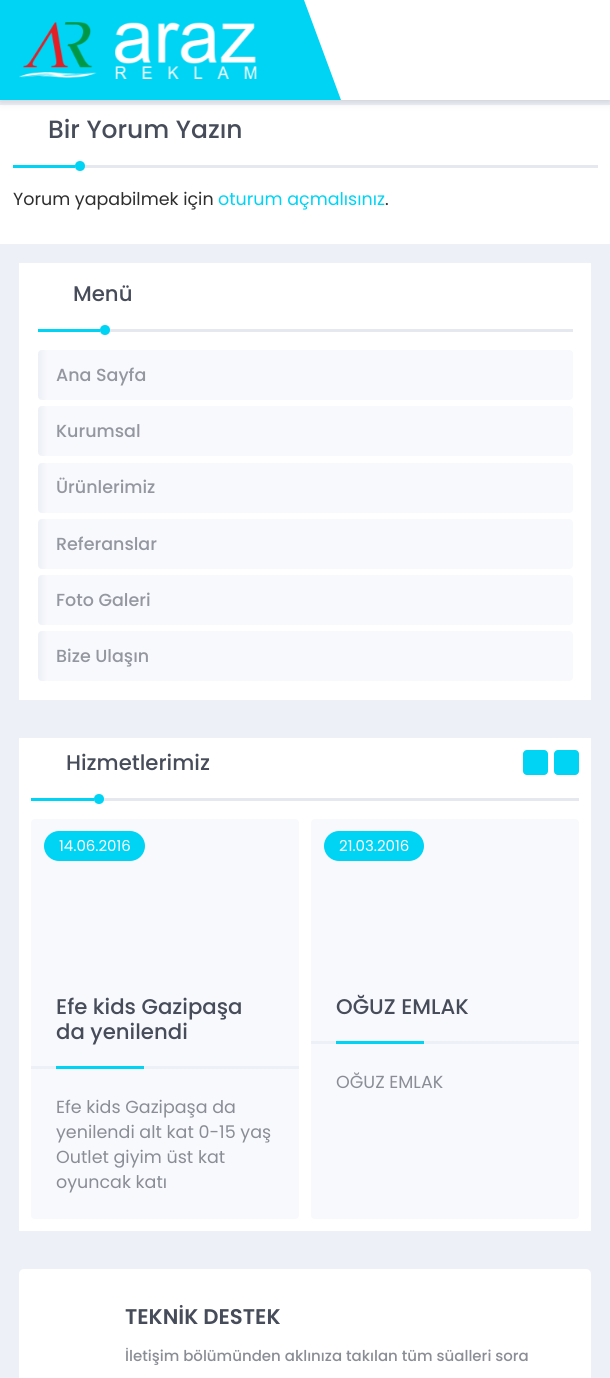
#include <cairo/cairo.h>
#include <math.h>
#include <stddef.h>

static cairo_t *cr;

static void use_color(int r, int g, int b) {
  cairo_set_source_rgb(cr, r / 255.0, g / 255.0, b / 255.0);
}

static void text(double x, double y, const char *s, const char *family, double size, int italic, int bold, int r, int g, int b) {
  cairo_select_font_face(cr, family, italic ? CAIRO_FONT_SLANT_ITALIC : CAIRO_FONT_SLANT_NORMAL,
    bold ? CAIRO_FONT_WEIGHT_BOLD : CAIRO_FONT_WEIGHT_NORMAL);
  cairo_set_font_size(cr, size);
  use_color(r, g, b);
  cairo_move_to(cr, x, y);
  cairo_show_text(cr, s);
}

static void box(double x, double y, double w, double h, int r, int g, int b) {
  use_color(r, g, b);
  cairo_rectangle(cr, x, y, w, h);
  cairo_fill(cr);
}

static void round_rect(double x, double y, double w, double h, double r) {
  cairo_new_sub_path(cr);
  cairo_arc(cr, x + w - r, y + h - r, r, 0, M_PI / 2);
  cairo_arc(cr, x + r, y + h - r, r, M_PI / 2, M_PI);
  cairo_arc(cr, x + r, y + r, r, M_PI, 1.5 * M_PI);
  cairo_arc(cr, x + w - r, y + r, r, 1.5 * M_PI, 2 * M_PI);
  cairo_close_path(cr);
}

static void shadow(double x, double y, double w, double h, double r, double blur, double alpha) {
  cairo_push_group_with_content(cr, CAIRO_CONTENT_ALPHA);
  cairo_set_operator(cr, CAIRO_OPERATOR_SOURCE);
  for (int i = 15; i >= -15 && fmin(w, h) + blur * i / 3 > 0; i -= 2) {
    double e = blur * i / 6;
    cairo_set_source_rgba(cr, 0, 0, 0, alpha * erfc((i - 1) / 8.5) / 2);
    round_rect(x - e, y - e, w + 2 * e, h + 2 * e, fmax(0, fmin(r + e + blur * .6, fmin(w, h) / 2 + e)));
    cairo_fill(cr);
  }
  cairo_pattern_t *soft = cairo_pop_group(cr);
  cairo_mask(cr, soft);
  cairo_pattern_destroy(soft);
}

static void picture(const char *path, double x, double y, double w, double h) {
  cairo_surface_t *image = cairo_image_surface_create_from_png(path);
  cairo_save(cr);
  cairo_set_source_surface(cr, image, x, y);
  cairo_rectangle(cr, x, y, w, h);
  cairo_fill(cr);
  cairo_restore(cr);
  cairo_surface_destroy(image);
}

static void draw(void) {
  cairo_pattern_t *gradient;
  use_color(237, 240, 247);
  cairo_paint(cr);
  box(0, 105, 610, 139, 255, 255, 255);
  use_color(0, 0, 0);
  shadow(0, 0, 610, 100, 0, 5, 0.2);
  box(341, 0, 269, 100, 255, 255, 255);
  box(0, 0, 341, 100, 0, 212, 245);
  picture("img_01.png", 19, 22, 238, 57);
  use_color(255, 255, 255);
  cairo_new_path(cr);
  cairo_move_to(cr, 341, 0);
  cairo_line_to(cr, 341, 100);
  cairo_line_to(cr, 304, 0);
  cairo_close_path(cr);
  cairo_fill(cr);
  box(75, 165, 523, 3, 229, 232, 239);
  use_color(0, 212, 245);
  cairo_arc(cr, 80, 166, 5, 0, 2 * M_PI);
  cairo_fill(cr);
  box(13, 165, 62, 3, 0, 212, 245);
  box(19, 263, 572, 437, 255, 255, 255);
  box(100, 329, 473, 3, 229, 232, 239);
  use_color(0, 212, 245);
  cairo_arc(cr, 105, 330, 5, 0, 2 * M_PI);
  cairo_fill(cr);
  box(38, 329, 62, 3, 0, 212, 245);
  use_color(248, 249, 253);
  round_rect(38, 350, 535, 50, 4);
  cairo_fill(cr);
  gradient = cairo_pattern_create_linear(38, 375, 48, 375);
  cairo_pattern_add_color_stop_rgba(gradient, 0, 0.929, 0.941, 0.969, 1);
  cairo_pattern_add_color_stop_rgba(gradient, 1, 0.973, 0.976, 0.992, 1);
  cairo_set_source(cr, gradient);
  cairo_pattern_destroy(gradient);
  round_rect(38, 350, 10, 50, 4);
  cairo_fill(cr);
  use_color(248, 249, 253);
  round_rect(38, 406, 535, 50, 4);
  cairo_fill(cr);
  gradient = cairo_pattern_create_linear(38, 431, 48, 431);
  cairo_pattern_add_color_stop_rgba(gradient, 0, 0.929, 0.941, 0.969, 1);
  cairo_pattern_add_color_stop_rgba(gradient, 1, 0.973, 0.976, 0.992, 1);
  cairo_set_source(cr, gradient);
  cairo_pattern_destroy(gradient);
  round_rect(38, 406, 10, 50, 4);
  cairo_fill(cr);
  use_color(248, 249, 253);
  round_rect(38, 463, 535, 50, 4);
  cairo_fill(cr);
  gradient = cairo_pattern_create_linear(38, 488, 48, 488);
  cairo_pattern_add_color_stop_rgba(gradient, 0, 0.929, 0.941, 0.969, 1);
  cairo_pattern_add_color_stop_rgba(gradient, 1, 0.973, 0.976, 0.992, 1);
  cairo_set_source(cr, gradient);
  cairo_pattern_destroy(gradient);
  round_rect(38, 463, 10, 50, 4);
  cairo_fill(cr);
  use_color(248, 249, 253);
  round_rect(38, 519, 535, 50, 4);
  cairo_fill(cr);
  gradient = cairo_pattern_create_linear(38, 544, 48, 544);
  cairo_pattern_add_color_stop_rgba(gradient, 0, 0.929, 0.941, 0.969, 1);
  cairo_pattern_add_color_stop_rgba(gradient, 1, 0.973, 0.976, 0.992, 1);
  cairo_set_source(cr, gradient);
  cairo_pattern_destroy(gradient);
  round_rect(38, 519, 10, 50, 4);
  cairo_fill(cr);
  use_color(248, 249, 253);
  round_rect(38, 575, 535, 50, 4);
  cairo_fill(cr);
  gradient = cairo_pattern_create_linear(38, 600, 48, 600);
  cairo_pattern_add_color_stop_rgba(gradient, 0, 0.929, 0.941, 0.969, 1);
  cairo_pattern_add_color_stop_rgba(gradient, 1, 0.973, 0.976, 0.992, 1);
  cairo_set_source(cr, gradient);
  cairo_pattern_destroy(gradient);
  round_rect(38, 575, 10, 50, 4);
  cairo_fill(cr);
  use_color(248, 249, 253);
  round_rect(38, 631, 535, 50, 4);
  cairo_fill(cr);
  gradient = cairo_pattern_create_linear(38, 656, 48, 656);
  cairo_pattern_add_color_stop_rgba(gradient, 0, 0.929, 0.941, 0.969, 1);
  cairo_pattern_add_color_stop_rgba(gradient, 1, 0.973, 0.976, 0.992, 1);
  cairo_set_source(cr, gradient);
  cairo_pattern_destroy(gradient);
  round_rect(38, 631, 10, 50, 4);
  cairo_fill(cr);
  box(19, 738, 572, 493, 255, 255, 255);
  box(94, 798, 485, 3, 229, 232, 239);
  use_color(0, 212, 245);
  cairo_arc(cr, 99, 799, 5, 0, 2 * M_PI);
  cairo_fill(cr);
  box(31, 798, 63, 3, 0, 212, 245);
  round_rect(523, 750, 25, 25, 4);
  cairo_fill(cr);
  round_rect(554, 750, 25, 25, 4);
  cairo_fill(cr);
  use_color(248, 249, 253);
  round_rect(31, 819, 268, 400, 4);
  cairo_fill(cr);
  use_color(0, 212, 245);
  round_rect(44, 831, 101, 30, 15);
  cairo_fill(cr);
  box(31, 1066, 268, 3, 237, 240, 247);
  box(56, 1066, 88, 3, 0, 212, 245);
  use_color(248, 249, 253);
  round_rect(311, 819, 268, 400, 4);
  cairo_fill(cr);
  use_color(0, 212, 245);
  round_rect(324, 831, 100, 30, 15);
  cairo_fill(cr);
  box(311, 1041, 268, 3, 237, 240, 247);
  box(336, 1041, 88, 3, 0, 212, 245);
  use_color(255, 255, 255);
  round_rect(19, 1269, 572, 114, 5);
  cairo_fill(cr);
  text(48, 138, "Bir Yorum Yazın", "Poppins Medium", 25, 0, 0, 70, 76, 89);
  text(13, 205, "Yorum yapabilmek için", "Poppins", 17.5, 0, 0, 46, 46, 46);
  text(218, 205, "oturum açmalısınız", "Poppins", 17.5, 0, 0, 0, 212, 245);
  text(385, 205, ".", "Poppins", 17.5, 0, 0, 46, 46, 46);
  text(73, 301, "Menü", "Poppins Medium", 21.25, 0, 0, 70, 76, 89);
  text(56, 381, "Ana Sayfa", "Poppins Medium", 17.5, 0, 0, 148, 151, 159);
  text(56, 437, "Kurumsal", "Poppins Medium", 17.5, 0, 0, 148, 151, 159);
  text(56, 493, "Ürünlerimiz", "Poppins Medium", 17.5, 0, 0, 148, 151, 159);
  text(56, 550, "Referanslar", "Poppins Medium", 17.5, 0, 0, 148, 151, 159);
  text(56, 606, "Foto Galeri", "Poppins Medium", 17.5, 0, 0, 148, 151, 159);
  text(56, 662, "Bize Ulaşın", "Poppins Medium", 17.5, 0, 0, 148, 151, 159);
  text(66, 770, "Hizmetlerimiz", "Poppins Medium", 21.25, 0, 0, 70, 76, 89);
  text(59, 851, "14.06.2016", "Poppins", 15, 0, 0, 255, 255, 255);
  text(56, 1014, "Efe kids Gazipaşa", "Poppins Medium", 21.25, 0, 0, 70, 76, 89);
  text(56, 1039, "da yenilendi", "Poppins Medium", 21.25, 0, 0, 70, 76, 89);
  text(56, 1113, "Efe kids Gazipaşa da", "Poppins", 17.5, 0, 0, 138, 141, 149);
  text(56, 1138, "yenilendi alt kat 0-15 yaş", "Poppins", 17.5, 0, 0, 138, 141, 149);
  text(56, 1163, "Outlet giyim üst kat", "Poppins", 17.5, 0, 0, 138, 141, 149);
  text(56, 1188, "oyuncak katı", "Poppins", 17.5, 0, 0, 138, 141, 149);
  text(339, 851, "21.03.2016", "Poppins", 15, 0, 0, 255, 255, 255);
  text(336, 1014, "OĞUZ EMLAK", "Poppins Medium", 21.25, 0, 0, 70, 76, 89);
  text(336, 1088, "OĞUZ EMLAK", "Poppins", 17.5, 0, 0, 138, 141, 149);
  text(125, 1324, "TEKNİK DESTEK", "Poppins SemiBold", 21.25, 0, 0, 70, 76, 89);
  text(125, 1361, "İletişim bölümünden aklınıza takılan tüm süalleri sora", "Poppins Medium", 15, 0, 0, 138, 141, 149);
}

int main(void) {
  cairo_surface_t *surface = cairo_image_surface_create(CAIRO_FORMAT_RGB24, 610, 1378);
  cr = cairo_create(surface);
  cairo_font_options_t *options = cairo_font_options_create();
  cairo_font_options_set_hint_metrics(options, CAIRO_HINT_METRICS_OFF);
  cairo_font_options_set_hint_style(options, CAIRO_HINT_STYLE_NONE);
  cairo_set_font_options(cr, options);
  cairo_set_miter_limit(cr, 4);
  draw();
  cairo_surface_write_to_png(surface, "out.png");
  cairo_font_options_destroy(options);
  cairo_destroy(cr);
  cairo_surface_destroy(surface);
  return 0;
}
